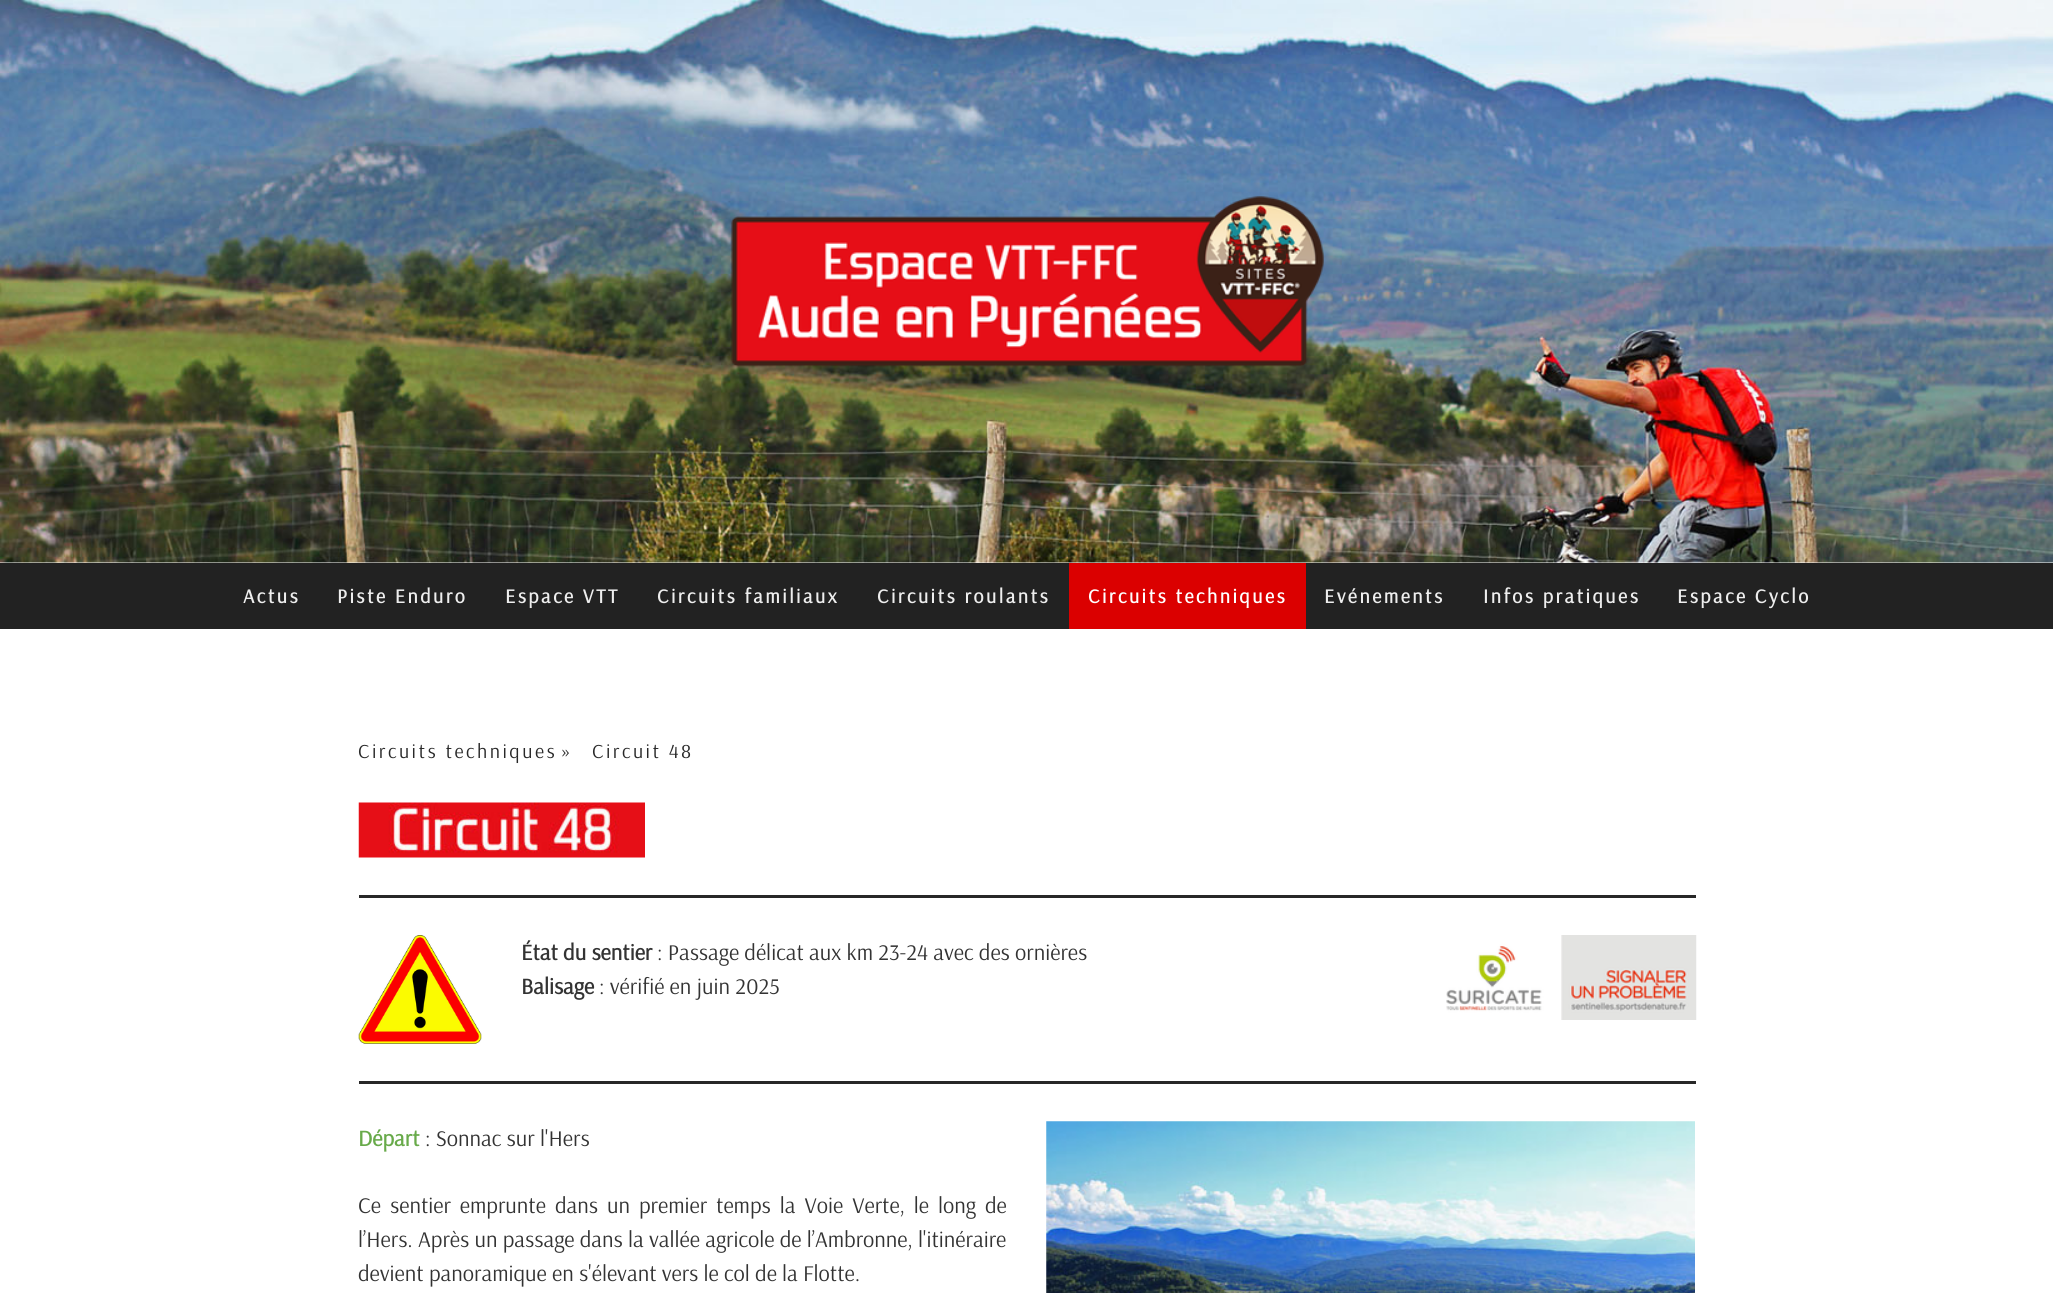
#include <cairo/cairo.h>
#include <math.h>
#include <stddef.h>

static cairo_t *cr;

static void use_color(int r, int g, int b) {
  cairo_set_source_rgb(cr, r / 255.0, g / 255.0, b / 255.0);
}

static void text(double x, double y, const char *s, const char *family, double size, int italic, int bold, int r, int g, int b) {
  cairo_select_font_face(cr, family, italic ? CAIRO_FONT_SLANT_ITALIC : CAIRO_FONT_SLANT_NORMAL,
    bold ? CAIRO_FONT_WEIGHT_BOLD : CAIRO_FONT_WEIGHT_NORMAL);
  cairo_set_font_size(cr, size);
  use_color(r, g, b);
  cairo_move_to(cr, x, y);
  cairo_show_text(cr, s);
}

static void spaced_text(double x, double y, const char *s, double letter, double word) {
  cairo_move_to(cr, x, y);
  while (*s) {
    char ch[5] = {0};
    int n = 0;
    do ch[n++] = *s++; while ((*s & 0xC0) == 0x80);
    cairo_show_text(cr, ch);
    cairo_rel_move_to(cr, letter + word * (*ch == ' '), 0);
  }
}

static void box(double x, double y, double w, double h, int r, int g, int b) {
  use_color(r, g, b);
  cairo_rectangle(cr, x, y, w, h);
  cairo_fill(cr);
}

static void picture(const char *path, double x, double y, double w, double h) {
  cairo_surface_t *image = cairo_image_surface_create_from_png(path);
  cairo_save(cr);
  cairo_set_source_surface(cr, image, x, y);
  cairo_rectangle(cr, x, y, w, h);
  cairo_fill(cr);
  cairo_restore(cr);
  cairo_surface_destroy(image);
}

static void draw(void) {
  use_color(255, 255, 255);
  cairo_paint(cr);
  picture("img_01.png", 0, 0, 2053, 563);
  picture("img_02.png", 731, 196, 593, 171);
  box(0, 563, 2053, 66, 34, 34, 34);
  box(1069, 563, 237, 66, 219, 0, 0);
  picture("img_03.png", 358, 802, 287, 56);
  box(359, 895, 1337, 3, 40, 40, 40);
  picture("img_04.png", 358, 935, 124, 109);
  picture("img_05.png", 1446, 935, 251, 85);
  box(359, 1081, 1337, 3, 40, 40, 40);
  picture("img_06.png", 1046, 1121, 649, 172);
  cairo_select_font_face(cr, "Arsenal", CAIRO_FONT_SLANT_NORMAL, CAIRO_FONT_WEIGHT_BOLD);
  cairo_set_font_size(cr, 20);
  use_color(238, 238, 238);
  spaced_text(243, 603, "Actus", 2.5, 0);
  spaced_text(337, 603, "Piste Enduro", 2.5, 0);
  spaced_text(505, 603, "Espace VTT", 2.5, 0);
  spaced_text(657, 603, "Circuits familiaux", 2.5, 0);
  spaced_text(877, 603, "Circuits roulants", 2.5, 0);
  use_color(255, 255, 255);
  spaced_text(1088, 603, "Circuits techniques", 2.5, 0);
  use_color(238, 238, 238);
  spaced_text(1324, 603, "Evénements", 2.5, 0);
  spaced_text(1483, 603, "Infos pratiques", 2.5, 0);
  spaced_text(1677, 603, "Espace Cyclo", 2.5, 0);
  cairo_select_font_face(cr, "Arsenal", CAIRO_FONT_SLANT_NORMAL, CAIRO_FONT_WEIGHT_NORMAL);
  use_color(40, 40, 40);
  spaced_text(358, 758, "Circuits techniques", 2.5, 0);
  spaced_text(561, 758, "»", 2.5, 0);
  spaced_text(592, 758, "Circuit 48", 2.5, 0);
  text(521, 960, "État du sentier", "Arsenal", 22.5, 0, 1, 51, 51, 51);
  text(657, 960, ": Passage délicat aux km 23-24 avec des ornières", "Arsenal", 22.5, 0, 0, 51, 51, 51);
  text(521, 994, "Balisage", "Arsenal", 22.5, 0, 1, 51, 51, 51);
  text(599, 994, ": vérifié en juin 2025", "Arsenal", 22.5, 0, 0, 51, 51, 51);
  text(358, 1146, "Départ", "Arsenal", 22.5, 0, 1, 104, 170, 74);
  text(425, 1146, ": Sonnac sur l'Hers", "Arsenal", 22.5, 0, 0, 51, 51, 51);
  spaced_text(358, 1213, "Ce sentier emprunte dans un premier temps la Voie Verte, le long de", 0, 3.75);
  text(358, 1247, "l’Hers. Après un passage dans la vallée agricole de l’Ambronne, l'itinéraire", "Arsenal", 22.5, 0, 0, 51, 51, 51);
  text(358, 1281, "devient panoramique en s'élevant vers le col de la Flotte.", "Arsenal", 22.5, 0, 0, 51, 51, 51);
}

int main(void) {
  cairo_surface_t *surface = cairo_image_surface_create(CAIRO_FORMAT_RGB24, 2053, 1293);
  cr = cairo_create(surface);
  cairo_font_options_t *options = cairo_font_options_create();
  cairo_font_options_set_hint_metrics(options, CAIRO_HINT_METRICS_OFF);
  cairo_font_options_set_hint_style(options, CAIRO_HINT_STYLE_NONE);
  cairo_set_font_options(cr, options);
  cairo_set_miter_limit(cr, 4);
  draw();
  cairo_surface_write_to_png(surface, "out.png");
  cairo_font_options_destroy(options);
  cairo_destroy(cr);
  cairo_surface_destroy(surface);
  return 0;
}
